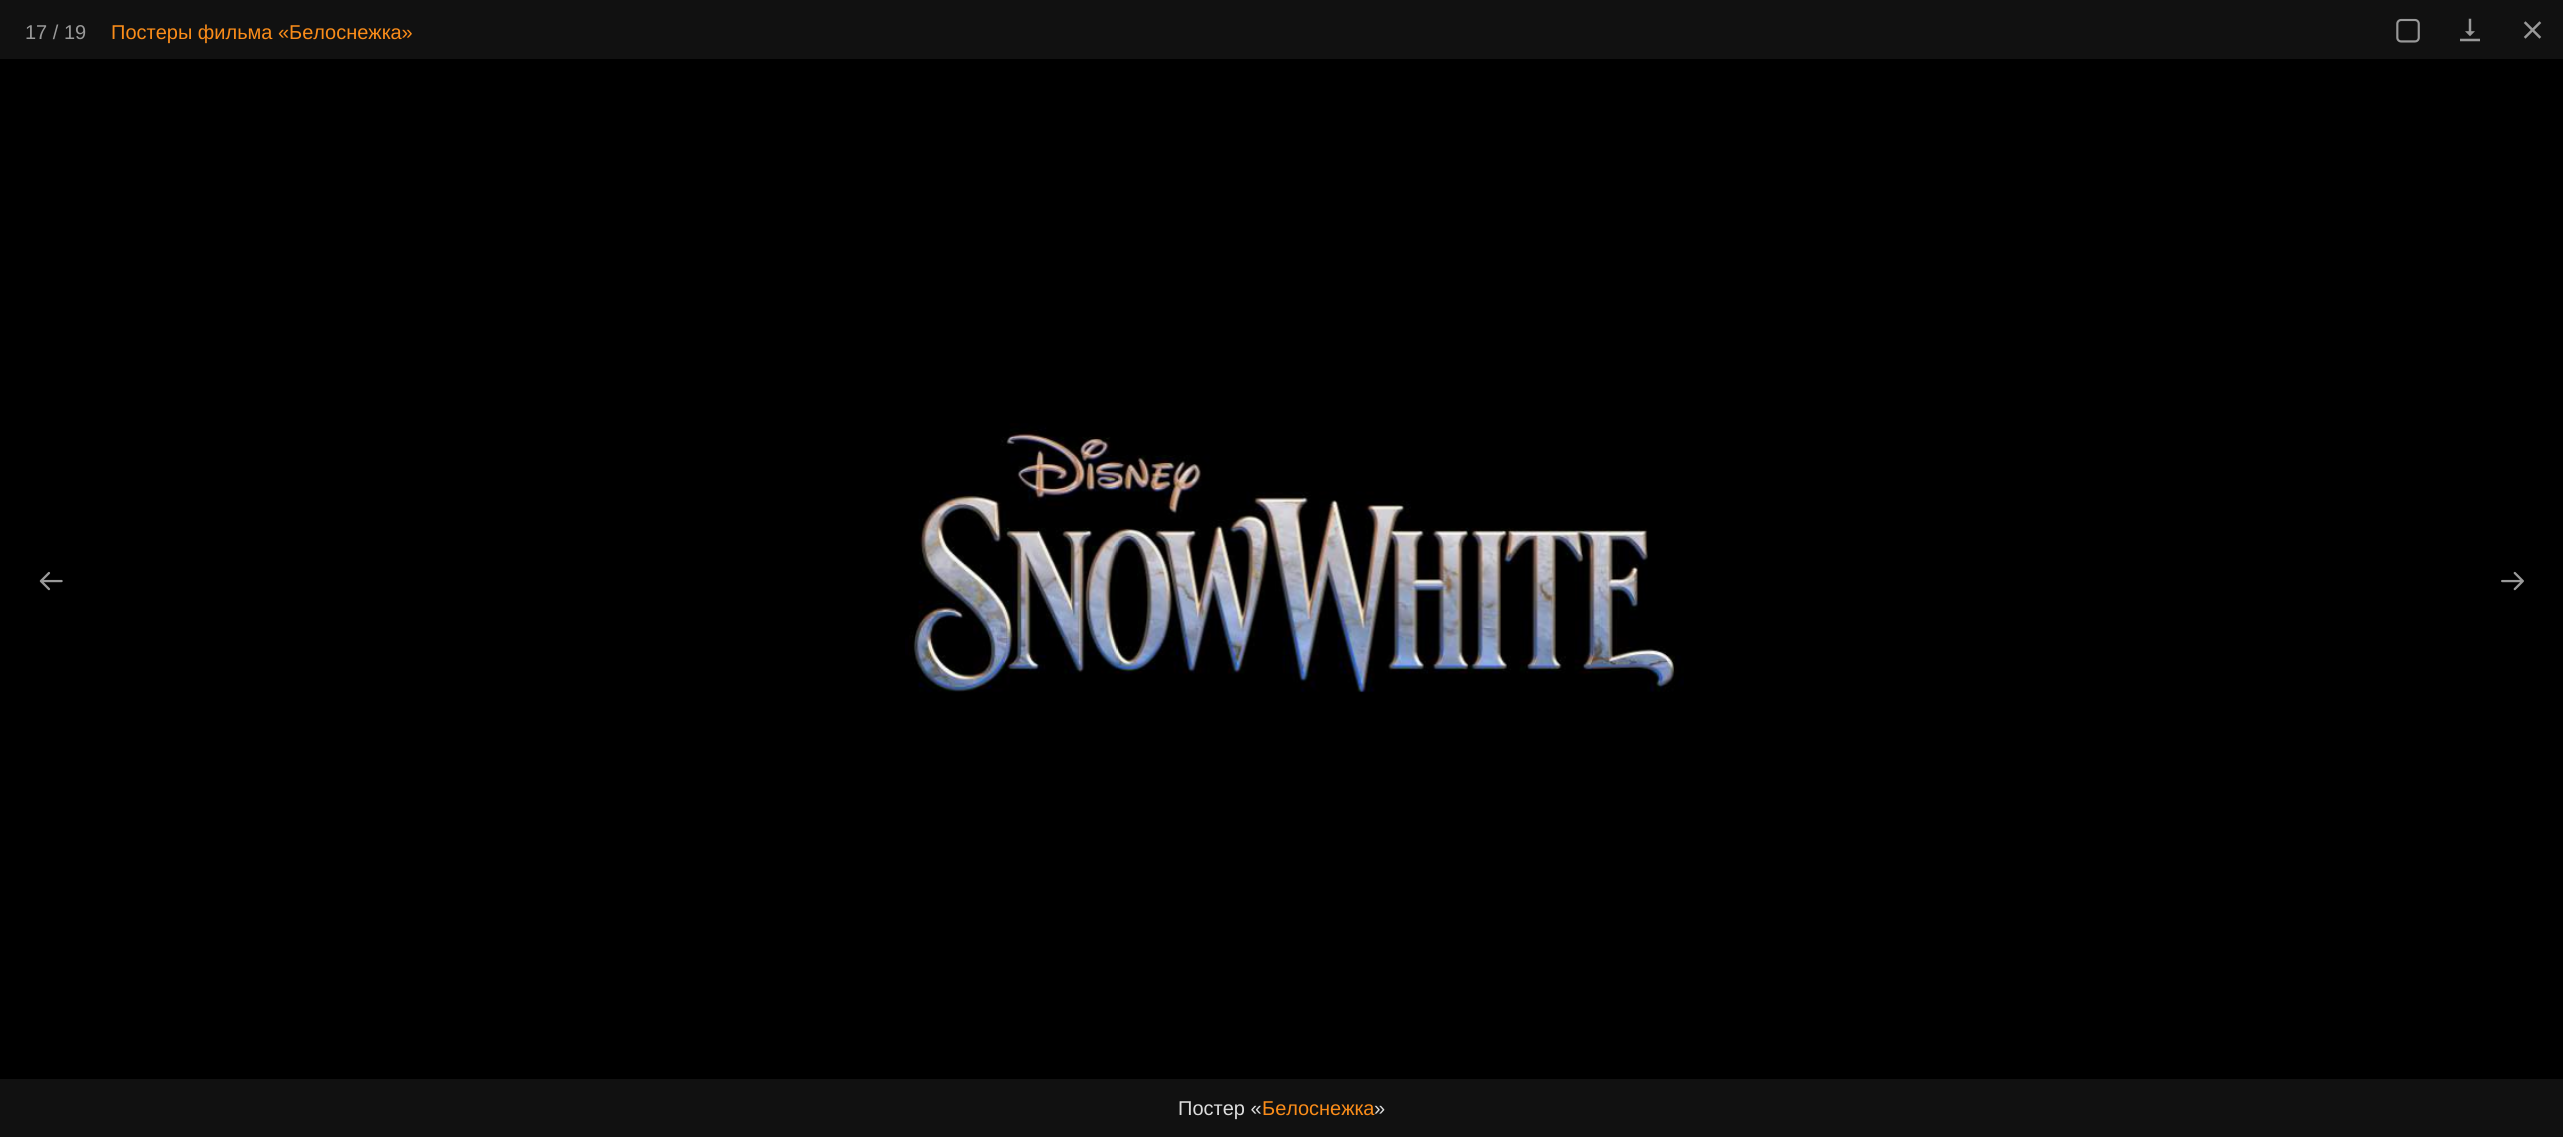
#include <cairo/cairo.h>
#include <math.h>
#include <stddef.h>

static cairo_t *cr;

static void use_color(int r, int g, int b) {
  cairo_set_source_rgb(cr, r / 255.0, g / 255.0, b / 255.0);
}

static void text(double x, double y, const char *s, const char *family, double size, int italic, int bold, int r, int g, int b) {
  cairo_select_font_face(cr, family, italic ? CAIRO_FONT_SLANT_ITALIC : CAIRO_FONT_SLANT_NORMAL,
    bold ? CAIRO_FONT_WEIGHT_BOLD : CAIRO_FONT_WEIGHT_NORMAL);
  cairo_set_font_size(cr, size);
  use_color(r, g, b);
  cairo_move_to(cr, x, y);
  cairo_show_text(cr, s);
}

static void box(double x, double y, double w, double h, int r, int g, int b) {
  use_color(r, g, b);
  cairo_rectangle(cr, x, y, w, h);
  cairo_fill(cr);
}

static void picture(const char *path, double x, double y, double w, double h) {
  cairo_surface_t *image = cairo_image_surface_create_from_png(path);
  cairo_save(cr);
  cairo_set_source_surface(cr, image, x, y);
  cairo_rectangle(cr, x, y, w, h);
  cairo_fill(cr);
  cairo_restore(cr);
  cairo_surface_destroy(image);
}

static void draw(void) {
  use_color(0, 0, 0);
  cairo_paint(cr);
  box(0, 0, 2563, 59, 17, 17, 17);
  picture("img_01.png", 2396, 18, 24, 25);
  picture("img_02.png", 2460, 18, 20, 24);
  picture("img_03.png", 2523, 21, 19, 18);
  picture("img_04.png", 905, 423, 779, 270);
  picture("img_05.png", 39, 571, 24, 20);
  picture("img_06.png", 2501, 571, 23, 20);
  box(0, 1079, 2563, 58, 17, 17, 17);
  text(25, 39, "17 / 19", "Liberation Sans", 20, 0, 0, 153, 153, 153);
  text(111, 39, "Постеры фильма «Белоснежка»", "Liberation Sans", 20, 0, 0, 250, 140, 25);
  text(1178, 1115, "Постер «", "Liberation Sans", 20, 0, 0, 221, 221, 221);
  text(1262, 1115, "Белоснежка", "Liberation Sans", 20, 0, 0, 250, 140, 25);
  text(1374, 1115, "»", "Liberation Sans", 20, 0, 0, 221, 221, 221);
}

int main(void) {
  cairo_surface_t *surface = cairo_image_surface_create(CAIRO_FORMAT_RGB24, 2563, 1137);
  cr = cairo_create(surface);
  cairo_font_options_t *options = cairo_font_options_create();
  cairo_font_options_set_hint_metrics(options, CAIRO_HINT_METRICS_OFF);
  cairo_font_options_set_hint_style(options, CAIRO_HINT_STYLE_NONE);
  cairo_set_font_options(cr, options);
  cairo_set_miter_limit(cr, 4);
  draw();
  cairo_surface_write_to_png(surface, "out.png");
  cairo_font_options_destroy(options);
  cairo_destroy(cr);
  cairo_surface_destroy(surface);
  return 0;
}
